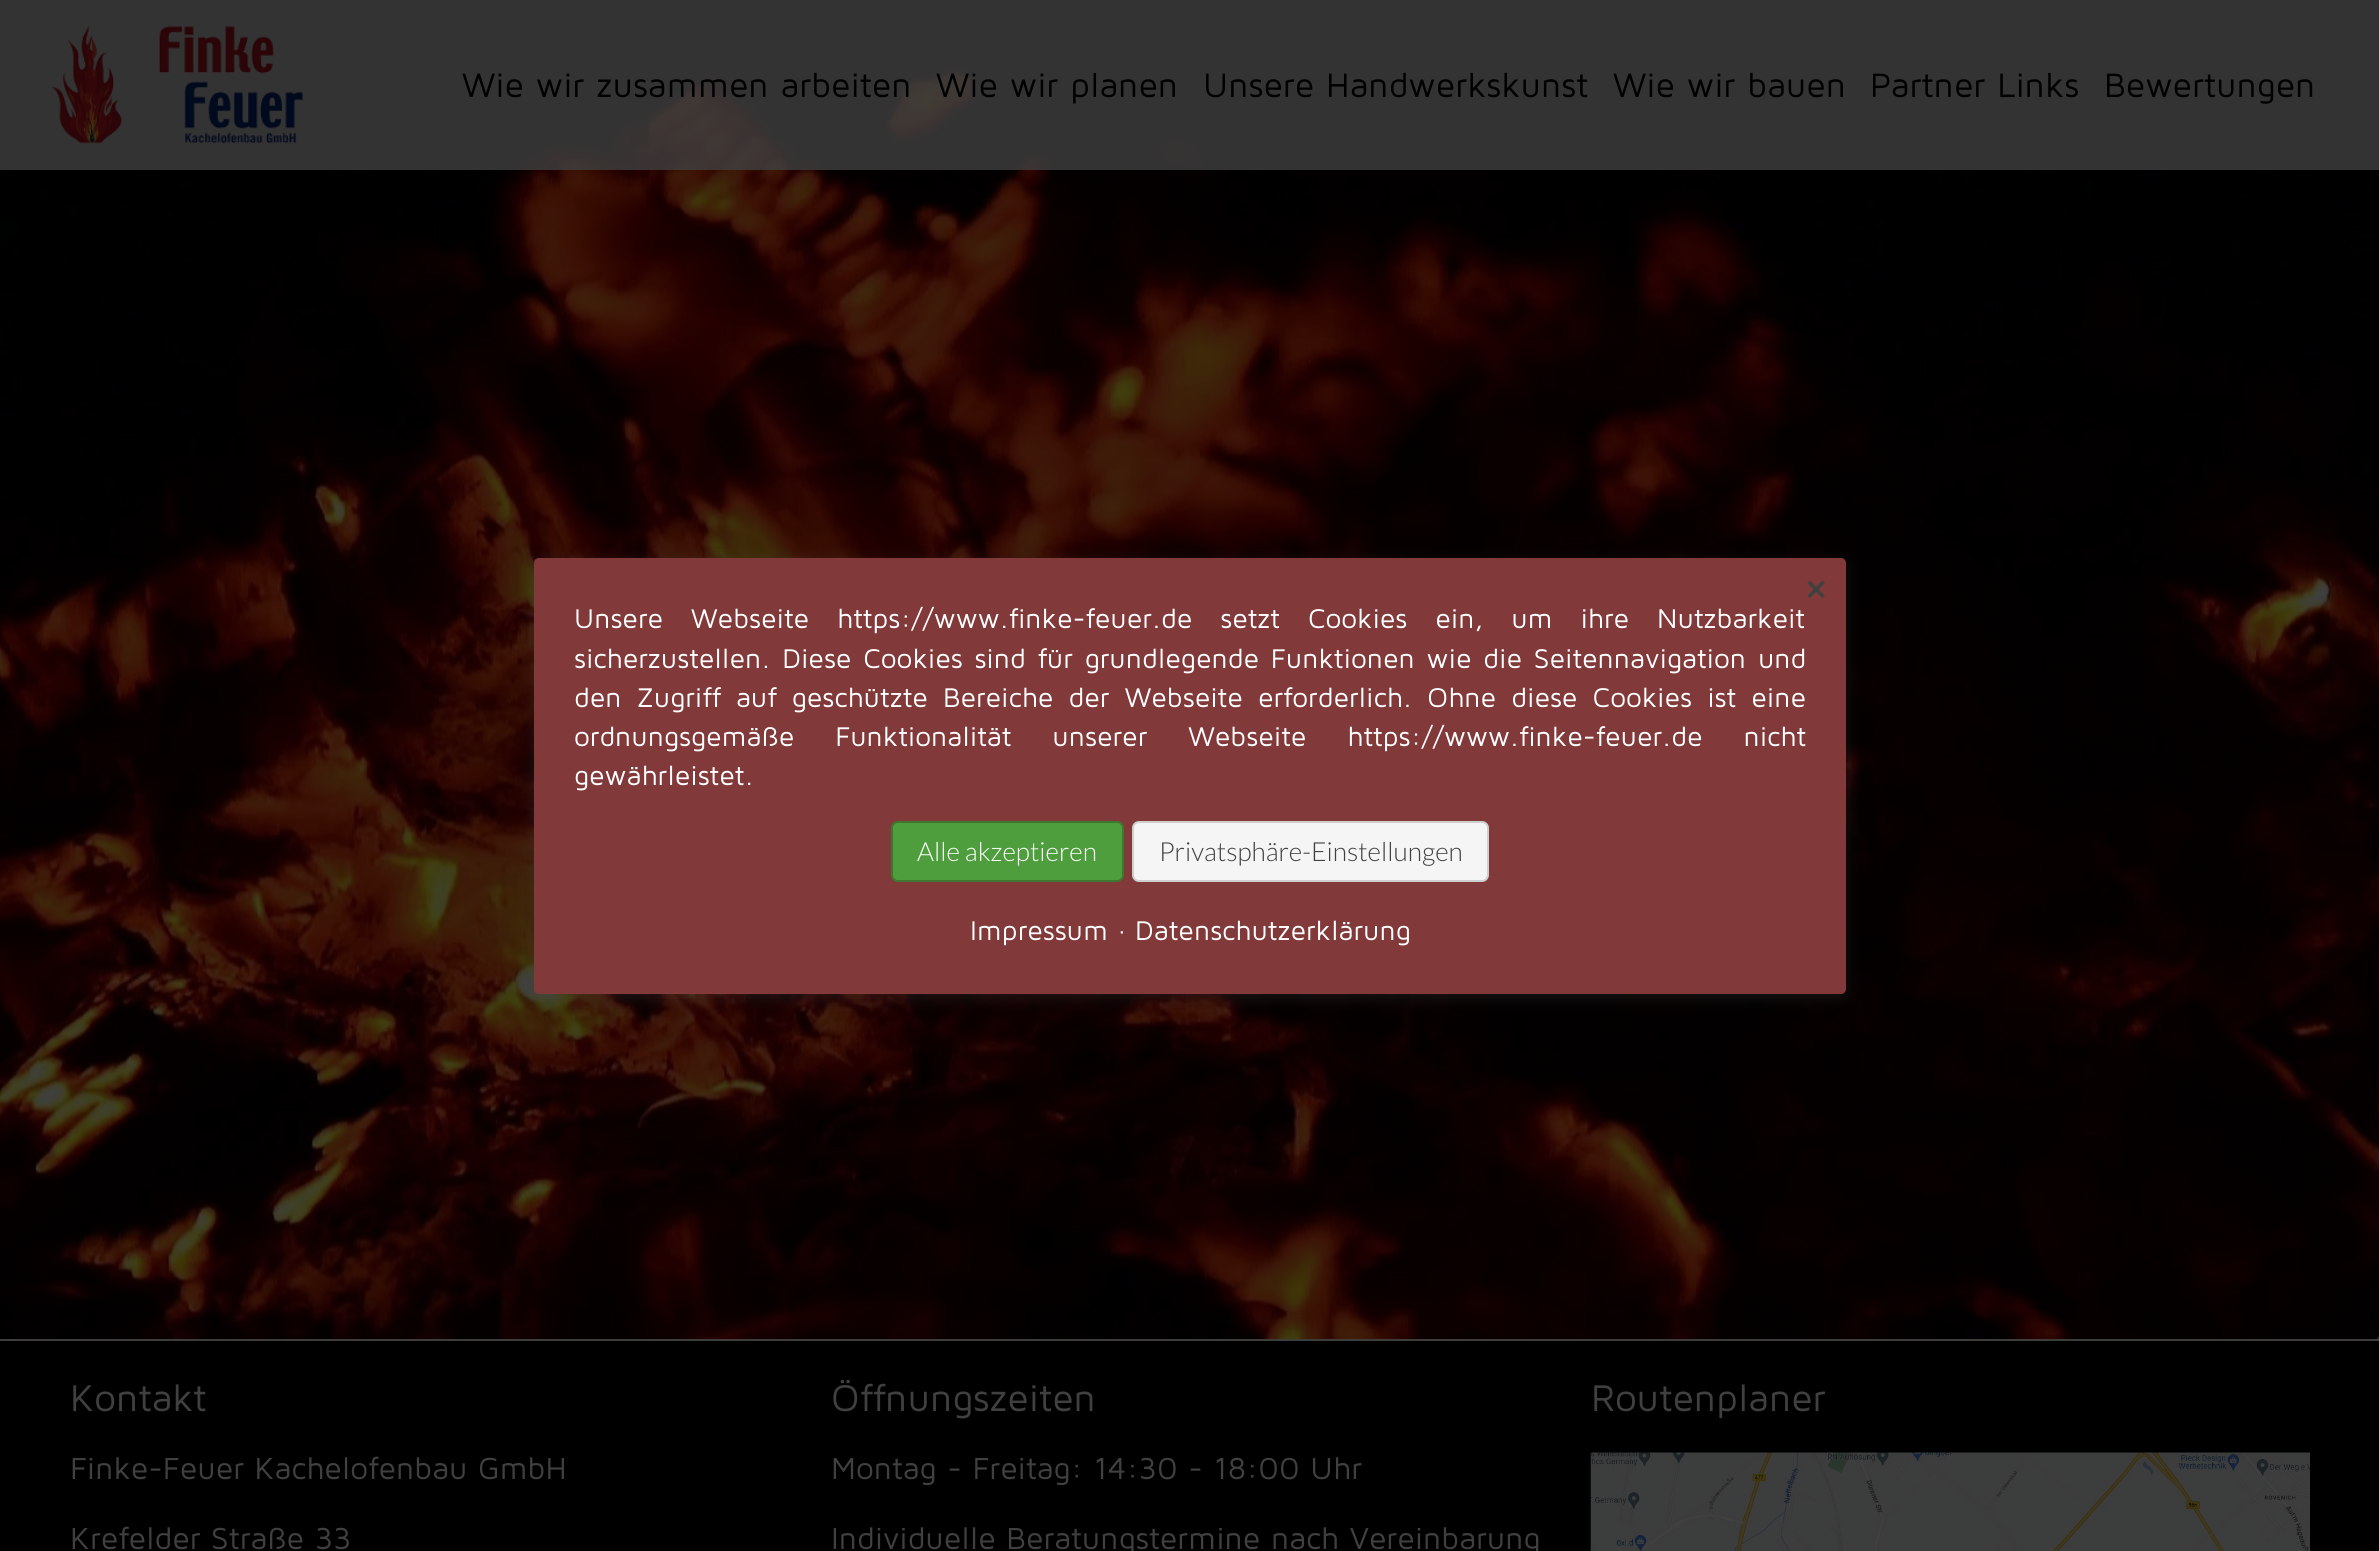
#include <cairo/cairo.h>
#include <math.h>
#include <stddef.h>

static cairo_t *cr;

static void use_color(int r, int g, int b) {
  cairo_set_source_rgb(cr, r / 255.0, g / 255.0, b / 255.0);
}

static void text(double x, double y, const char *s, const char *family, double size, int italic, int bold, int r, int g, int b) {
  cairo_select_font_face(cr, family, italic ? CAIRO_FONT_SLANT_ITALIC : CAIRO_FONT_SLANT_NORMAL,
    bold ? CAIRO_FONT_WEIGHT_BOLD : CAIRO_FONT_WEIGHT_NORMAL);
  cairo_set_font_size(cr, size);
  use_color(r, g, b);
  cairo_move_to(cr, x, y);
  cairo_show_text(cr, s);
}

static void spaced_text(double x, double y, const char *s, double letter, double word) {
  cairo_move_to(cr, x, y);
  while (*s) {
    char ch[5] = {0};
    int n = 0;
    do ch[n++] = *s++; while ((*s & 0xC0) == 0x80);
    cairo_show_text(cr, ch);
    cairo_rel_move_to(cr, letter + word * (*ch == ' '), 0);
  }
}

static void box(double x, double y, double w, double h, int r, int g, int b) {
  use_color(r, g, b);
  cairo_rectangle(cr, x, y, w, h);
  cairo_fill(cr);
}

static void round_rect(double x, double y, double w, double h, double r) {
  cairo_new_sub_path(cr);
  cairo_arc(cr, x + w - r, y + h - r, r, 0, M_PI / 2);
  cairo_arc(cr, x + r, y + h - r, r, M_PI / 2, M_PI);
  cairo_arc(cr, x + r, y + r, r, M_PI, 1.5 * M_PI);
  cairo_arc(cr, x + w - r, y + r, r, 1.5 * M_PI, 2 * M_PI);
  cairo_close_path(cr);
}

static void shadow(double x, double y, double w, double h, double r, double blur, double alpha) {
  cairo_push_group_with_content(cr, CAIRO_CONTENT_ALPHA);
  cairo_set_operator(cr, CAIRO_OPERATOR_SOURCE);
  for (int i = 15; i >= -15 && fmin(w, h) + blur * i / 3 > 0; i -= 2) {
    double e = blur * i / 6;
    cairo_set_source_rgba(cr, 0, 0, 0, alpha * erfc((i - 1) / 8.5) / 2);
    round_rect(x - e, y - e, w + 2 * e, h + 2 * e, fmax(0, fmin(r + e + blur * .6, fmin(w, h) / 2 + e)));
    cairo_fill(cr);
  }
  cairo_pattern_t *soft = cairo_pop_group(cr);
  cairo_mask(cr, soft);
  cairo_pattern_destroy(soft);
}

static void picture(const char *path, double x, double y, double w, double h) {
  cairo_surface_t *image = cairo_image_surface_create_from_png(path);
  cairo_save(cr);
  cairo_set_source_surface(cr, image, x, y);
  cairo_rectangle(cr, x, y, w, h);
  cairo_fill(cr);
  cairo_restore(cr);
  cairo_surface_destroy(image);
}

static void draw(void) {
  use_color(61, 62, 60);
  cairo_paint(cr);
  picture("img_01.png", 0, 0, 2379, 1339);
  cairo_set_source_rgba(cr, 0.251, 0.251, 0.251, 0.8);
  cairo_rectangle(cr, 0, 0, 2379, 170);
  cairo_fill(cr);
  picture("img_02.png", 52, 26, 252, 118);
  box(0, 1341, 2379, 210, 0, 0, 0);
  picture("img_03.png", 1590, 1452, 720, 99);
  use_color(99, 99, 99);
  shadow(534, 562, 1312, 436, 5, 7, 0.2);
  use_color(129, 57, 58);
  round_rect(534, 558, 1312, 436, 5);
  cairo_fill(cr);
  use_color(78, 158, 62);
  round_rect(892, 822, 231, 59, 6);
  cairo_fill_preserve(cr);
  use_color(62, 120, 48);
  cairo_stroke(cr);
  use_color(245, 245, 245);
  round_rect(1133, 822, 355, 59, 6);
  cairo_fill_preserve(cr);
  use_color(207, 207, 207);
  cairo_stroke(cr);
  text(462, 97, "Wie wir zusammen arbeiten", "Maven Pro", 35, 0, 0, 0, 0, 0);
  text(936, 97, "Wie wir planen", "Maven Pro", 35, 0, 0, 0, 0, 0);
  text(1203, 97, "Unsere Handwerkskunst", "Maven Pro", 35, 0, 0, 0, 0, 0);
  text(1613, 97, "Wie wir bauen", "Maven Pro", 35, 0, 0, 0, 0, 0);
  text(1870, 97, "Partner Links", "Maven Pro", 35, 0, 0, 0, 0, 0);
  text(2104, 97, "Bewertungen", "Maven Pro", 35, 0, 0, 0, 0, 0);
  text(70, 1411, "Kontakt", "Maven Pro", 38.5, 0, 0, 64, 64, 64);
  text(70, 1479, "Finke-Feuer Kachelofenbau GmbH", "Maven Pro", 31.5, 0, 0, 64, 64, 64);
  text(70, 1549, "Krefelder Straße 33", "Maven Pro", 31.5, 0, 0, 64, 64, 64);
  text(831, 1411, "Öffnungszeiten", "Maven Pro", 38.5, 0, 0, 64, 64, 64);
  text(831, 1479, "Montag - Freitag: 14:30 - 18:00 Uhr", "Maven Pro", 31.5, 0, 0, 64, 64, 64);
  text(831, 1549, "Individuelle Beratungstermine nach Vereinbarung", "Maven Pro", 31.5, 0, 0, 64, 64, 64);
  text(1591, 1411, "Routenplaner", "Maven Pro", 38.5, 0, 0, 64, 64, 64);
  text(1804, 600, "✕", "DejaVu Sans", 28, 0, 1, 64, 64, 64);
  cairo_select_font_face(cr, "Maven Pro", CAIRO_FONT_SLANT_NORMAL, CAIRO_FONT_WEIGHT_NORMAL);
  use_color(255, 255, 255);
  spaced_text(574, 628, "Unsere Webseite https://www.finke-feuer.de setzt Cookies ein, um ihre Nutzbarkeit", 0, 18.5);
  spaced_text(574, 668, "sicherzustellen. Diese Cookies sind für grundlegende Funktionen wie die Seitennavigation und", 0, 2.4);
  spaced_text(574, 707, "den Zugriff auf geschützte Bereiche der Webseite erforderlich. Ohne diese Cookies ist eine", 0, 5.75);
  spaced_text(574, 746, "ordnungsgemäße Funktionalität unserer Webseite https://www.finke-feuer.de nicht", 0, 31.5);
  text(574, 785, "gewährleistet.", "Maven Pro", 28, 0, 0, 255, 255, 255);
  text(917, 861, "Alle akzeptieren", "Lato Light", 26.25, 0, 0, 255, 255, 255);
  text(1159, 861, "Privatsphäre-Einstellungen", "Lato Light", 26.25, 0, 0, 64, 64, 64);
  text(970, 940, "Impressum ·", "Maven Pro", 28, 0, 0, 255, 255, 255);
  text(1135, 940, "Datenschutzerklärung", "Maven Pro", 28, 0, 0, 255, 255, 255);
}

int main(void) {
  cairo_surface_t *surface = cairo_image_surface_create(CAIRO_FORMAT_RGB24, 2379, 1551);
  cr = cairo_create(surface);
  cairo_font_options_t *options = cairo_font_options_create();
  cairo_font_options_set_hint_metrics(options, CAIRO_HINT_METRICS_OFF);
  cairo_font_options_set_hint_style(options, CAIRO_HINT_STYLE_NONE);
  cairo_set_font_options(cr, options);
  cairo_set_miter_limit(cr, 4);
  draw();
  cairo_surface_write_to_png(surface, "out.png");
  cairo_font_options_destroy(options);
  cairo_destroy(cr);
  cairo_surface_destroy(surface);
  return 0;
}
